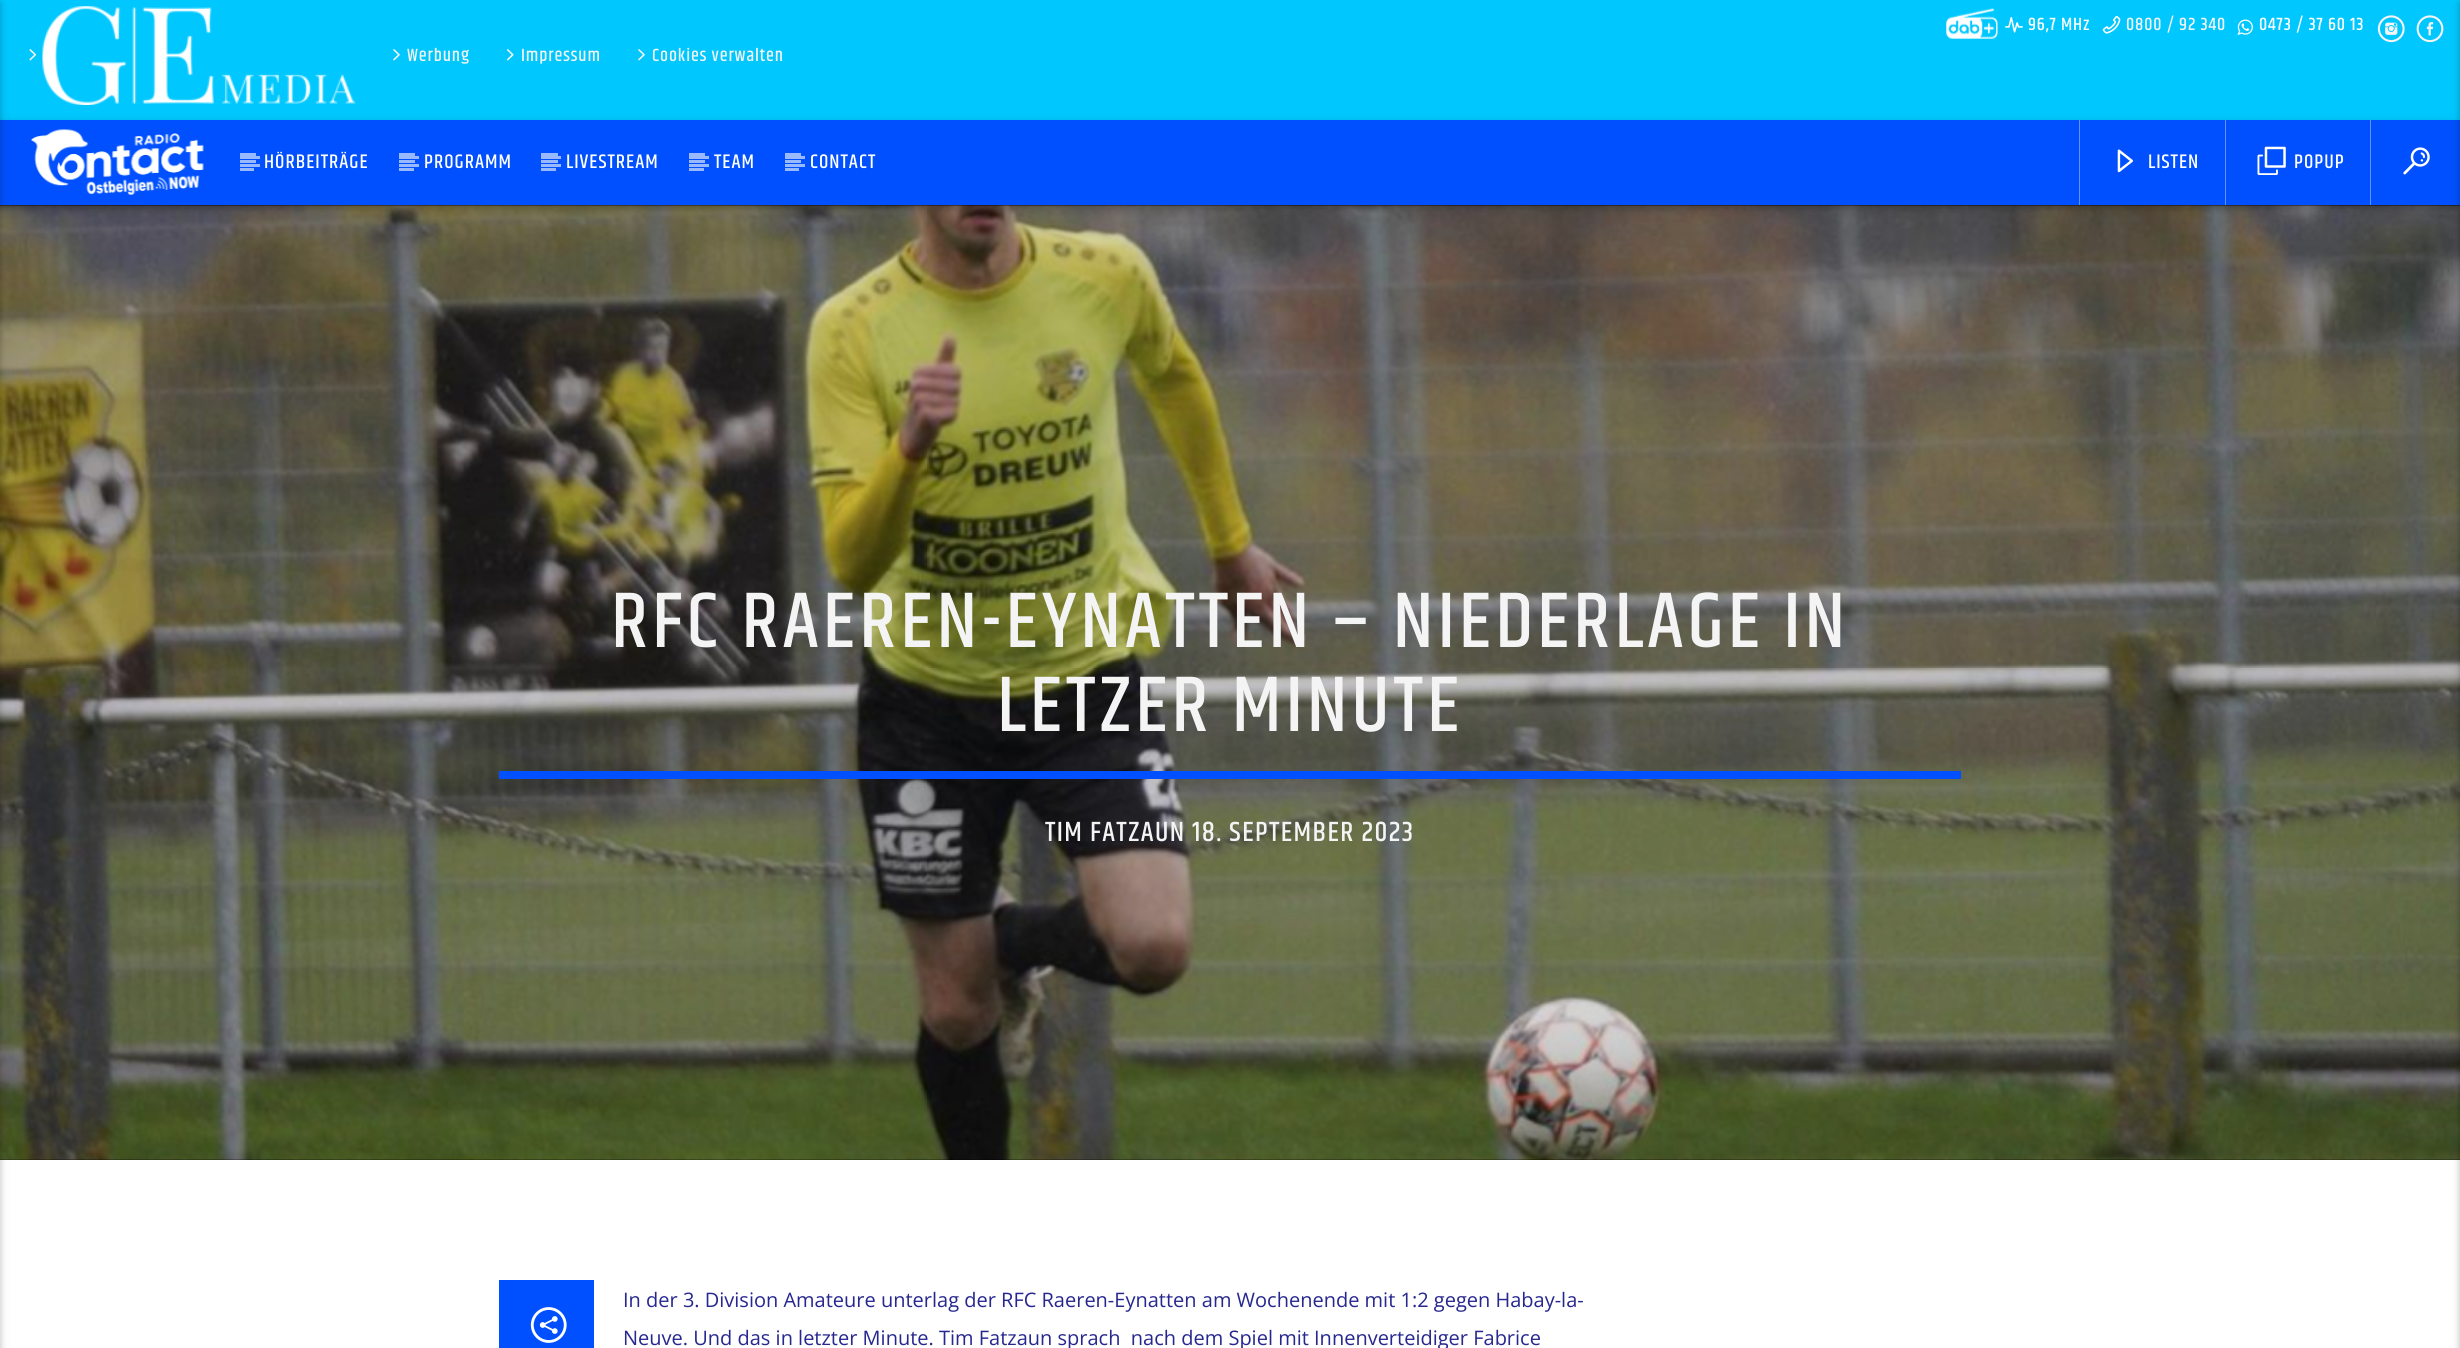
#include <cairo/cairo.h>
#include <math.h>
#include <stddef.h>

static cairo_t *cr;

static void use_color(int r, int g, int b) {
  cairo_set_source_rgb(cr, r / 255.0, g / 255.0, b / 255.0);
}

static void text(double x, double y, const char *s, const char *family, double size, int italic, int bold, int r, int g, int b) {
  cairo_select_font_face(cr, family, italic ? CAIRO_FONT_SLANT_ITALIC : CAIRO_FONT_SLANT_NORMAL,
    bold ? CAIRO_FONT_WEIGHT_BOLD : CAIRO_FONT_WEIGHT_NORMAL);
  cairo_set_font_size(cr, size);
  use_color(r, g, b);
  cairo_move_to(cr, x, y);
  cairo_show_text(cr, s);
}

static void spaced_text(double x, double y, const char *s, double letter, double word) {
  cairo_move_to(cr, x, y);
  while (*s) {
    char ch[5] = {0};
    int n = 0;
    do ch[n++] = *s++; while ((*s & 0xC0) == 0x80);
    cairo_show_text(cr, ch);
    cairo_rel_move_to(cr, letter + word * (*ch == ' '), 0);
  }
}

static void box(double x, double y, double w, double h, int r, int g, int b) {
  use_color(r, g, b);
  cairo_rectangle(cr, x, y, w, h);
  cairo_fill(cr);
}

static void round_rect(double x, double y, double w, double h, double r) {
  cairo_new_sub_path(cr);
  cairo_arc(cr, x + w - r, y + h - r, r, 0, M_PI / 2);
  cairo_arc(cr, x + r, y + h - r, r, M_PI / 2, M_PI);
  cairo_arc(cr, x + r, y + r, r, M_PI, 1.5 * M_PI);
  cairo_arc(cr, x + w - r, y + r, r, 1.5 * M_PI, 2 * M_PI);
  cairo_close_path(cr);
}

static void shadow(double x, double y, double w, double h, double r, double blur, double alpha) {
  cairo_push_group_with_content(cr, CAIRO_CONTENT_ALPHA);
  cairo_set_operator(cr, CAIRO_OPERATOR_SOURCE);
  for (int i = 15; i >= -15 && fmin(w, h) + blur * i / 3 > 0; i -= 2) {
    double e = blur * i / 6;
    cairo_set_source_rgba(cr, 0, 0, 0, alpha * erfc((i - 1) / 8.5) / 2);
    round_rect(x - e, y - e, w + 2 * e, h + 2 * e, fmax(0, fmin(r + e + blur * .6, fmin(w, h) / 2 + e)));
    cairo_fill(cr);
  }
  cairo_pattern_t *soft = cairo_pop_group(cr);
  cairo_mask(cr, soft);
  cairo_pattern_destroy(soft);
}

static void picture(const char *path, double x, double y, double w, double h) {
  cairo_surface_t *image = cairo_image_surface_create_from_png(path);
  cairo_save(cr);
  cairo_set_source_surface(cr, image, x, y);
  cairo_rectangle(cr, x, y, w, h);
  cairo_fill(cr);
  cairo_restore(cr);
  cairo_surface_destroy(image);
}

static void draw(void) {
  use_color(255, 255, 255);
  cairo_paint(cr);
  box(0, 0, 2460, 120, 0, 200, 255);
  picture("img_01.png", 42, 6, 314, 99);
  box(0, 205, 2460, 955, 0, 0, 0);
  picture("img_15.png", 0, 205, 2460, 955);
  use_color(0, 0, 0);
  shadow(0, 123, 2460, 85, 0, 6, 0.12);
  shadow(0, 123, 2460, 85, 0, 3, 0.16);
  box(0, 120, 2460, 85, 0, 80, 255);
  use_color(0, 0, 0);
  shadow(-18, 3, 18, 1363, 0, 6, 0.12);
  shadow(-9, 3, 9, 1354, 0, 3, 0.16);
  picture("img_02.png", 1946, 8, 52, 31);
  picture("img_03.png", 2005, 17, 18, 16);
  picture("img_04.png", 2102, 16, 19, 18);
  picture("img_05.png", 2237, 19, 16, 16);
  picture("img_06.png", 2377, 15, 28, 28);
  picture("img_07.png", 2416, 15, 28, 28);
  picture("img_08.png", 29, 49, 7, 12);
  picture("img_09.png", 393, 49, 7, 12);
  picture("img_10.png", 507, 49, 7, 12);
  picture("img_09.png", 638, 49, 7, 12);
  picture("img_11.png", 31, 129, 173, 66);
  box(240, 153, 16, 3, 153, 185, 255);
  box(240, 160, 16, 3, 153, 185, 255);
  box(240, 156, 20, 3, 153, 185, 255);
  box(240, 164, 20, 3, 153, 185, 255);
  box(240, 168, 14, 3, 153, 185, 255);
  box(399, 153, 16, 3, 153, 185, 255);
  box(399, 160, 16, 3, 153, 185, 255);
  box(399, 156, 20, 3, 153, 185, 255);
  box(399, 164, 20, 3, 153, 185, 255);
  box(399, 168, 15, 3, 153, 185, 255);
  box(541, 153, 17, 3, 153, 185, 255);
  box(541, 160, 17, 3, 153, 185, 255);
  box(541, 156, 20, 3, 153, 185, 255);
  box(541, 164, 20, 3, 153, 185, 255);
  box(541, 168, 15, 3, 153, 185, 255);
  box(689, 153, 16, 3, 153, 185, 255);
  box(689, 160, 16, 3, 153, 185, 255);
  box(689, 156, 20, 3, 153, 185, 255);
  box(689, 164, 20, 3, 153, 185, 255);
  box(689, 168, 15, 3, 153, 185, 255);
  box(785, 153, 16, 3, 153, 185, 255);
  box(785, 160, 16, 3, 153, 185, 255);
  box(785, 156, 20, 3, 153, 185, 255);
  box(785, 164, 20, 3, 153, 185, 255);
  box(785, 168, 14, 3, 153, 185, 255);
  box(2079, 120, 1, 85, 97, 147, 255);
  picture("img_12.png", 2117, 149, 16, 24);
  box(2225, 120, 1, 85, 97, 147, 255);
  picture("img_13.png", 2257, 146, 29, 29);
  box(2370, 120, 1, 85, 97, 147, 255);
  picture("img_14.png", 2403, 147, 27, 28);
  use_color(0, 0, 0);
  shadow(2460, 3, 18, 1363, 0, 6, 0.12);
  shadow(2460, 3, 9, 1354, 0, 3, 0.16);
  box(499, 771, 1462, 8, 0, 80, 255);
  box(499, 1280, 95, 68, 0, 80, 255);
  picture("img_16.png", 530, 1307, 37, 36);
  cairo_select_font_face(cr, "Khand Medium", CAIRO_FONT_SLANT_NORMAL, CAIRO_FONT_WEIGHT_NORMAL);
  cairo_set_font_size(cr, 18);
  use_color(255, 255, 255);
  spaced_text(2028, 30, "96,7 MHz", 0.9, 0);
  use_color(244, 244, 244);
  spaced_text(2126, 30, "0800 / 92 340", 0.9, 0);
  use_color(255, 255, 255);
  spaced_text(2259, 30, "0473 / 37 60 13", 0.9, 0);
  use_color(244, 244, 244);
  spaced_text(407, 61, "Werbung", 0.9, 0);
  spaced_text(521, 61, "Impressum", 0.9, 0);
  spaced_text(652, 61, "Cookies verwalten", 0.9, 0);
  cairo_set_font_size(cr, 20);
  use_color(255, 255, 255);
  spaced_text(264, 168, "HÖRBEITRÄGE", 1, 0);
  spaced_text(424, 168, "PROGRAMM", 1, 0);
  spaced_text(566, 168, "LIVESTREAM", 1, 0);
  spaced_text(714, 168, "TEAM", 1, 0);
  spaced_text(810, 168, "CONTACT", 1, 0);
  spaced_text(2148, 168, "LISTEN", 1, 0);
  spaced_text(2294, 168, "POPUP", 1, 0);
  cairo_set_font_size(cr, 80);
  use_color(244, 244, 244);
  spaced_text(611, 647, "RFC RAEREN-EYNATTEN – NIEDERLAGE IN", 4, 0);
  spaced_text(997, 731, "LETZER MINUTE", 4, 0);
  cairo_set_font_size(cr, 28.25);
  spaced_text(1045, 841, "TIM FATZAUN 18. SEPTEMBER 2023", 1.4, 0);
  text(623, 1307, "In der 3. Division Amateure unterlag der RFC Raeren-Eynatten am Wochenende mit 1:2 gegen Habay-la-", "Open Sans", 20, 0, 0, 39, 39, 144);
  text(623, 1345, "Neuve. Und das in letzter Minute. Tim Fatzaun sprach  nach dem Spiel mit Innenverteidiger Fabrice", "Open Sans", 20, 0, 0, 39, 39, 144);
}

int main(void) {
  cairo_surface_t *surface = cairo_image_surface_create(CAIRO_FORMAT_RGB24, 2460, 1348);
  cr = cairo_create(surface);
  cairo_font_options_t *options = cairo_font_options_create();
  cairo_font_options_set_hint_metrics(options, CAIRO_HINT_METRICS_OFF);
  cairo_font_options_set_hint_style(options, CAIRO_HINT_STYLE_NONE);
  cairo_set_font_options(cr, options);
  cairo_set_miter_limit(cr, 4);
  draw();
  cairo_surface_write_to_png(surface, "out.png");
  cairo_font_options_destroy(options);
  cairo_destroy(cr);
  cairo_surface_destroy(surface);
  return 0;
}
